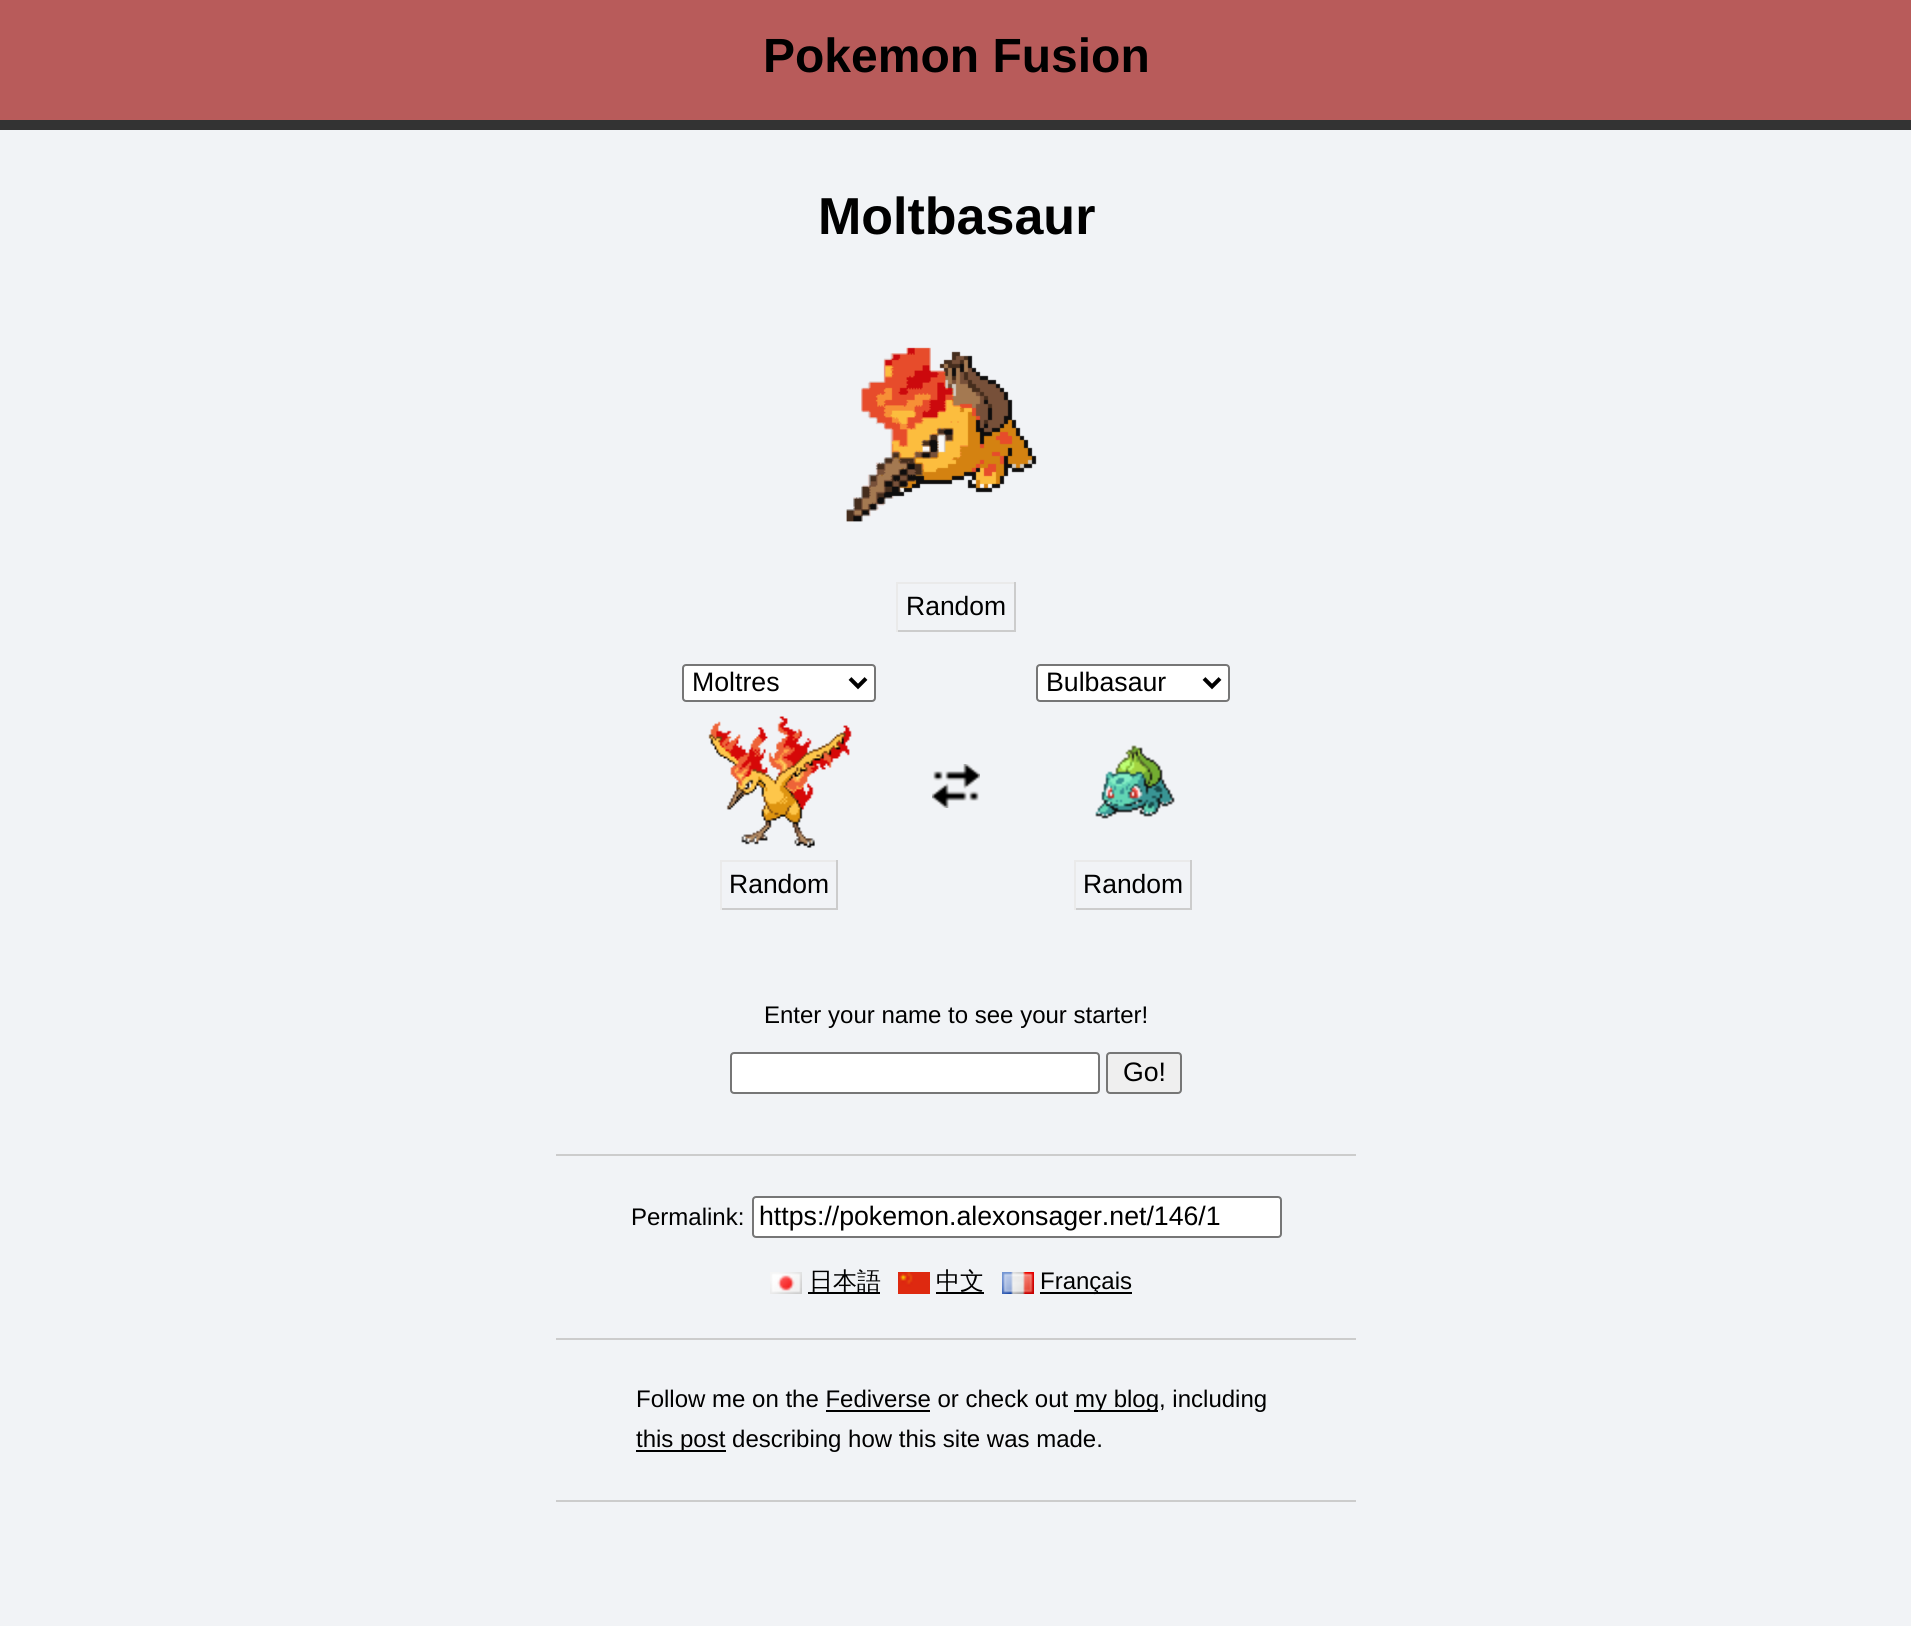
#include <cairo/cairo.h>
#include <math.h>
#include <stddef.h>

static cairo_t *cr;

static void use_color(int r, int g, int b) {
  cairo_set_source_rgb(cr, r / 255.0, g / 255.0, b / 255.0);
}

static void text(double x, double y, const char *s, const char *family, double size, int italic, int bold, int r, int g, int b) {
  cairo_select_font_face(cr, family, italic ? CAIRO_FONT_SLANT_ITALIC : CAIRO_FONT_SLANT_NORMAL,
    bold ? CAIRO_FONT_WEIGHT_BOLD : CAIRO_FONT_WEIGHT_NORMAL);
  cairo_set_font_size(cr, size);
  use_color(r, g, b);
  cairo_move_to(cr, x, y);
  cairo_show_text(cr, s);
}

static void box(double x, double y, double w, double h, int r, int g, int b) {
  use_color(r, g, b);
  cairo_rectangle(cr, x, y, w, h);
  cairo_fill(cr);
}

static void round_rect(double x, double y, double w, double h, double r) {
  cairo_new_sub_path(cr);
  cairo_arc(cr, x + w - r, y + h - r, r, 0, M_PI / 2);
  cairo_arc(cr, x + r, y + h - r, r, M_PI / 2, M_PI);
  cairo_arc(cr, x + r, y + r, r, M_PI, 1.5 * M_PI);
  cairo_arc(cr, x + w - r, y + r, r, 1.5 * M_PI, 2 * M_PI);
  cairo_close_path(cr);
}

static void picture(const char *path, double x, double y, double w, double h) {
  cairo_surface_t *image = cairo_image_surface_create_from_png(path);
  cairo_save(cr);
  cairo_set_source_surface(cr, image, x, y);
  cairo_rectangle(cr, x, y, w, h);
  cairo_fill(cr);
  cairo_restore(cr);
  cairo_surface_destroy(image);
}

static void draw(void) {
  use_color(241, 243, 246);
  cairo_paint(cr);
  box(0, 0, 1911, 120, 184, 91, 90);
  box(0, 120, 1911, 10, 51, 51, 51);
  picture("img_01.png", 846, 347, 191, 175);
  box(896, 582, 120, 2, 234, 234, 234);
  box(1014, 582, 2, 50, 204, 204, 204);
  box(896, 630, 120, 2, 204, 204, 204);
  box(896, 582, 2, 50, 234, 234, 234);
  use_color(255, 255, 255);
  round_rect(683, 665, 192, 36, 3);
  cairo_fill_preserve(cr);
  use_color(118, 118, 118);
  cairo_stroke(cr);
  cairo_new_path(cr);
  cairo_move_to(cr, 850, 678.5);
  cairo_line_to(cr, 858, 686.5);
  cairo_line_to(cr, 866, 678.5);
  use_color(0, 0, 0);
  cairo_set_line_width(cr, 4);
  cairo_stroke(cr);
  picture("img_02.png", 708, 716, 144, 132);
  box(720, 860, 118, 2, 234, 234, 234);
  box(836, 860, 2, 50, 204, 204, 204);
  box(720, 908, 118, 2, 204, 204, 204);
  box(720, 860, 2, 50, 234, 234, 234);
  picture("img_03.png", 932, 764, 48, 44);
  use_color(255, 255, 255);
  round_rect(1037, 665, 192, 36, 3);
  cairo_fill_preserve(cr);
  use_color(118, 118, 118);
  cairo_set_line_width(cr, 2);
  cairo_stroke(cr);
  cairo_new_path(cr);
  cairo_move_to(cr, 1204, 678.5);
  cairo_line_to(cr, 1212, 686.5);
  cairo_line_to(cr, 1220, 678.5);
  use_color(0, 0, 0);
  cairo_set_line_width(cr, 4);
  cairo_stroke(cr);
  picture("img_04.png", 1095, 745, 80, 74);
  box(1074, 860, 118, 2, 234, 234, 234);
  box(1190, 860, 2, 50, 204, 204, 204);
  box(1074, 908, 118, 2, 204, 204, 204);
  box(1074, 860, 2, 50, 234, 234, 234);
  use_color(255, 255, 255);
  round_rect(731, 1053, 368, 40, 3);
  cairo_fill_preserve(cr);
  use_color(118, 118, 118);
  cairo_set_line_width(cr, 2);
  cairo_stroke(cr);
  use_color(239, 239, 239);
  round_rect(1107, 1053, 74, 40, 3);
  cairo_fill_preserve(cr);
  use_color(118, 118, 118);
  cairo_stroke(cr);
  box(556, 1154, 800, 2, 204, 204, 204);
  box(556, 1338, 800, 2, 204, 204, 204);
  use_color(255, 255, 255);
  round_rect(753, 1197, 528, 40, 3);
  cairo_fill_preserve(cr);
  use_color(118, 118, 118);
  cairo_stroke(cr);
  picture("img_05.png", 770, 1272, 32, 22);
  box(808, 1292, 72, 2, 0, 0, 0);
  picture("img_06.png", 898, 1272, 32, 22);
  box(936, 1292, 48, 2, 0, 0, 0);
  picture("img_07.png", 1002, 1272, 32, 22);
  box(1040, 1292, 92, 2, 0, 0, 0);
  box(556, 1500, 800, 2, 204, 204, 204);
  box(1074, 1410, 84, 2, 0, 0, 0);
  box(826, 1410, 104, 2, 0, 0, 0);
  box(636, 1450, 90, 2, 0, 0, 0);
  text(763, 72, "Pokemon Fusion", "Liberation Sans", 48, 0, 1, 0, 0, 0);
  text(818, 234, "Moltbasaur", "Liberation Sans", 52, 0, 1, 0, 0, 0);
  text(906, 615, "Random", "Liberation Sans", 26.5, 0, 0, 0, 0, 0);
  text(692, 691, "Moltres", "Liberation Sans", 26.7, 0, 0, 0, 0, 0);
  text(729, 893, "Random", "Liberation Sans", 26.5, 0, 0, 0, 0, 0);
  text(1046, 691, "Bulbasaur", "Liberation Sans", 26.7, 0, 0, 0, 0, 0);
  text(1083, 893, "Random", "Liberation Sans", 26.5, 0, 0, 0, 0, 0);
  text(764, 1023, "Enter your name to see your starter!", "Liberation Sans", 24, 0, 0, 0, 0, 0);
  text(1123, 1081, "Go!", "Liberation Sans", 26.7, 0, 0, 0, 0, 0);
  text(631, 1225, "Permalink:", "Liberation Sans", 24, 0, 0, 0, 0, 0);
  text(759, 1225, "https://pokemon.alexonsager.net/146/1", "Liberation Sans", 26.7, 0, 0, 0, 0, 0);
  text(809, 1289, "日本語", "WenQuanYi Zen Hei Medium", 24, 0, 0, 0, 0, 0);
  text(936, 1289, "中文", "WenQuanYi Zen Hei Medium", 24, 0, 0, 0, 0, 0);
  text(1040, 1289, "Français", "Liberation Sans", 24, 0, 0, 0, 0, 0);
  text(636, 1407, "Follow me on the Fediverse or check out", "Liberation Sans", 24, 0, 0, 0, 0, 0);
  text(1075, 1407, "my blog, including", "Liberation Sans", 24, 0, 0, 0, 0, 0);
  text(636, 1447, "this post describing how this site was made.", "Liberation Sans", 24, 0, 0, 0, 0, 0);
}

int main(void) {
  cairo_surface_t *surface = cairo_image_surface_create(CAIRO_FORMAT_RGB24, 1911, 1626);
  cr = cairo_create(surface);
  cairo_font_options_t *options = cairo_font_options_create();
  cairo_font_options_set_hint_metrics(options, CAIRO_HINT_METRICS_OFF);
  cairo_font_options_set_hint_style(options, CAIRO_HINT_STYLE_NONE);
  cairo_set_font_options(cr, options);
  cairo_set_miter_limit(cr, 4);
  draw();
  cairo_surface_write_to_png(surface, "out.png");
  cairo_font_options_destroy(options);
  cairo_destroy(cr);
  cairo_surface_destroy(surface);
  return 0;
}
